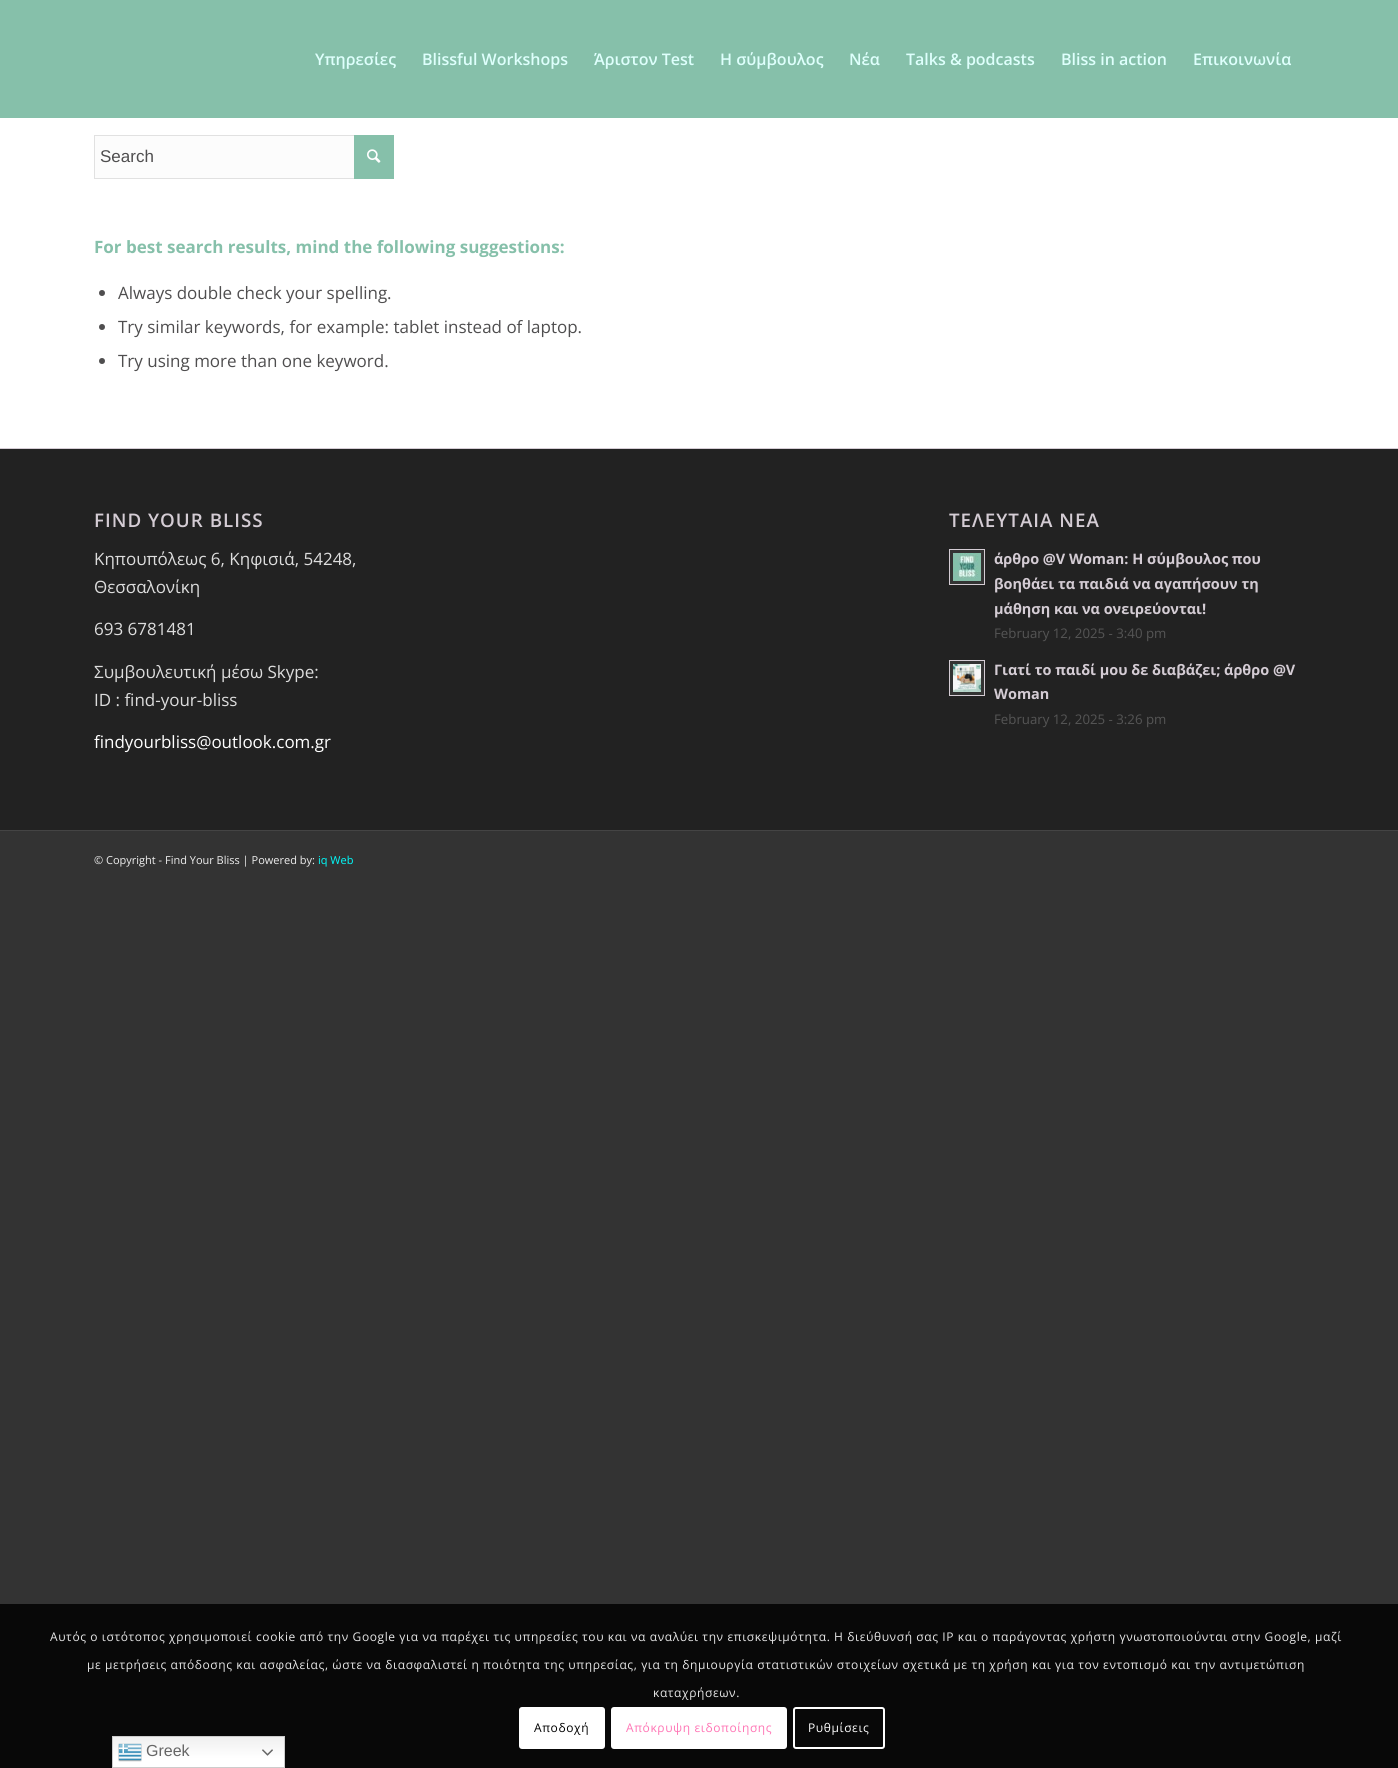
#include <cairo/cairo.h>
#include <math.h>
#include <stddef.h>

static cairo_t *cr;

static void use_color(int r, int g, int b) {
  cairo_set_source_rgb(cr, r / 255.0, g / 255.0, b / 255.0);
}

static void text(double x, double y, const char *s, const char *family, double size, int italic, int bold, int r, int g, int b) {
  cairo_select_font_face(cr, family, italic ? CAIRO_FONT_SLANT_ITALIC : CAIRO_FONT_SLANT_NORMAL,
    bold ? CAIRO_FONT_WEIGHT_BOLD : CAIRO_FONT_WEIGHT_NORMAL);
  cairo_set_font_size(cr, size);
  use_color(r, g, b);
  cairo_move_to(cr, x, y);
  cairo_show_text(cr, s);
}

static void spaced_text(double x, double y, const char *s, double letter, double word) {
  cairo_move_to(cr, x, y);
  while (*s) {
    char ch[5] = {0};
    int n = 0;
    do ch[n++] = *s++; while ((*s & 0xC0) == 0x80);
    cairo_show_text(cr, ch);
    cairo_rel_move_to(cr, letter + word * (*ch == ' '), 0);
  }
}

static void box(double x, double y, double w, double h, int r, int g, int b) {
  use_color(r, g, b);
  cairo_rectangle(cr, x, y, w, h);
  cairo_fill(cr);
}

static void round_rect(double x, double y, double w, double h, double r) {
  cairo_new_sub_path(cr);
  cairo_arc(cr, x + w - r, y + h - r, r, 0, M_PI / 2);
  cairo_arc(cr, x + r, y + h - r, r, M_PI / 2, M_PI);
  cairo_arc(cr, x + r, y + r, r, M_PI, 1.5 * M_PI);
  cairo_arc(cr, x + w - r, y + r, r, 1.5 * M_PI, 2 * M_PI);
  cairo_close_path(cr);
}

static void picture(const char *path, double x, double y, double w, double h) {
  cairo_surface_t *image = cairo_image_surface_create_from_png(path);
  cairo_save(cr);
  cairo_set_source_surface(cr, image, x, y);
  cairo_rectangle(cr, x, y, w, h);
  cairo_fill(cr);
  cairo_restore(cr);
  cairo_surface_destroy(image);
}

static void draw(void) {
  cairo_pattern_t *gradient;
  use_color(51, 51, 51);
  cairo_paint(cr);
  box(0, 0, 1398, 118, 134, 192, 170);
  box(0, 118, 1398, 330, 255, 255, 255);
  box(95, 136, 259, 42, 252, 252, 252);
  cairo_rectangle(cr, 94.5, 135.5, 299, 43);
  use_color(225, 225, 225);
  cairo_set_line_width(cr, 1);
  cairo_stroke(cr);
  box(354, 135, 40, 44, 134, 192, 170);
  picture("img_01.png", 367, 149, 14, 14);
  use_color(79, 78, 79);
  cairo_arc(cr, 102, 293, 3, 0, 2 * M_PI);
  cairo_fill(cr);
  cairo_arc(cr, 102, 327, 3, 0, 2 * M_PI);
  cairo_fill(cr);
  cairo_arc(cr, 102, 361, 3, 0, 2 * M_PI);
  cairo_fill(cr);
  box(0, 449, 1398, 381, 34, 34, 34);
  box(0, 448, 1398, 1, 212, 204, 212);
  use_color(51, 51, 51);
  cairo_rectangle(cr, 949.5, 549.5, 35, 35);
  cairo_fill_preserve(cr);
  use_color(212, 204, 212);
  cairo_stroke(cr);
  picture("img_02.png", 953, 553, 28, 28);
  use_color(51, 51, 51);
  cairo_rectangle(cr, 949.5, 660.5, 35, 35);
  cairo_fill_preserve(cr);
  use_color(212, 204, 212);
  cairo_stroke(cr);
  picture("img_03.png", 953, 664, 28, 28);
  box(0, 830, 1398, 1, 68, 68, 68);
  box(0, 1604, 1398, 164, 8, 8, 8);
  use_color(255, 255, 255);
  round_rect(519, 1707, 86, 42, 3);
  cairo_fill(cr);
  round_rect(612, 1708, 174, 40, 2);
  cairo_fill_preserve(cr);
  cairo_set_line_width(cr, 2);
  cairo_stroke(cr);
  round_rect(794, 1708, 90, 40, 2);
  cairo_stroke(cr);
  gradient = cairo_pattern_create_linear(199, 1736, 199, 1768);
  cairo_pattern_add_color_stop_rgba(gradient, 0, 0.937, 0.937, 0.937, 1);
  cairo_pattern_add_color_stop_rgba(gradient, 0.7, 1, 1, 1, 1);
  cairo_set_source(cr, gradient);
  cairo_pattern_destroy(gradient);
  cairo_rectangle(cr, 113, 1737, 171, 30);
  cairo_fill(cr);
  cairo_rectangle(cr, 112.5, 1736.5, 172, 31);
  use_color(204, 204, 204);
  cairo_set_line_width(cr, 1);
  cairo_stroke(cr);
  picture("img_04.png", 118, 1743, 24, 19);
  picture("img_05.png", 262, 1749, 11, 7);
  text(315, 65, "Υπηρεσίες", "Open Sans SemiBold", 16, 0, 0, 222, 255, 252);
  text(422, 65, "Blissful Workshops", "Open Sans SemiBold", 16, 0, 0, 222, 255, 252);
  text(594, 65, "Άριστον Test", "Open Sans SemiBold", 16, 0, 0, 222, 255, 252);
  text(720, 65, "Η σύμβουλος", "Open Sans SemiBold", 16, 0, 0, 222, 255, 252);
  text(849, 65, "Νέα", "Open Sans SemiBold", 16, 0, 0, 222, 255, 252);
  text(906, 65, "Talks & podcasts", "Open Sans SemiBold", 16, 0, 0, 222, 255, 252);
  text(1061, 65, "Bliss in action", "Open Sans SemiBold", 16, 0, 0, 222, 255, 252);
  text(1193, 65, "Επικοινωνία", "Open Sans SemiBold", 16, 0, 0, 222, 255, 252);
  text(100, 162, "Search", "Liberation Sans", 17, 0, 0, 79, 78, 79);
  text(94, 253, "For best search results, mind the following suggestions:", "Open Sans", 17, 0, 1, 134, 192, 170);
  text(118, 299, "Always double check your spelling.", "Open Sans", 17, 0, 0, 79, 78, 79);
  text(118, 333, "Try similar keywords, for example: tablet instead of laptop.", "Open Sans", 17, 0, 0, 79, 78, 79);
  text(118, 367, "Try using more than one keyword.", "Open Sans", 17, 0, 0, 79, 78, 79);
  cairo_select_font_face(cr, "Open Sans SemiBold", CAIRO_FONT_SLANT_NORMAL, CAIRO_FONT_WEIGHT_NORMAL);
  cairo_set_font_size(cr, 18.75);
  use_color(212, 204, 212);
  spaced_text(94, 527, "FIND YOUR BLISS", 1, 0);
  text(94, 565, "Κηπουπόλεως 6, Κηφισιά, 54248,", "Open Sans", 17, 0, 0, 221, 221, 221);
  text(94, 593, "Θεσσαλονίκη", "Open Sans", 17, 0, 0, 221, 221, 221);
  text(94, 635, "693 6781481", "Open Sans", 17, 0, 0, 221, 221, 221);
  text(94, 678, "Συμβουλευτική μέσω Skype:", "Open Sans", 17, 0, 0, 221, 221, 221);
  text(94, 706, "ID : find-your-bliss", "Open Sans", 17, 0, 0, 221, 221, 221);
  text(94, 748, "findyourbliss@outlook.com.gr", "Open Sans", 17, 0, 0, 255, 255, 255);
  cairo_select_font_face(cr, "Open Sans SemiBold", CAIRO_FONT_SLANT_NORMAL, CAIRO_FONT_WEIGHT_NORMAL);
  cairo_set_font_size(cr, 18.75);
  use_color(212, 204, 212);
  spaced_text(949, 527, "ΤΕΛΕΥΤΑΙΑ ΝΕΑ", 1, 0);
  text(994, 564, "άρθρο @V Woman: Η σύμβουλος που", "Open Sans", 14.45, 0, 1, 212, 204, 212);
  text(994, 589, "βοηθάει τα παιδιά να αγαπήσουν τη", "Open Sans", 14.45, 0, 1, 212, 204, 212);
  text(994, 614, "μάθηση και να ονειρεύονται!", "Open Sans", 14.45, 0, 1, 212, 204, 212);
  text(994, 638, "February 12, 2025 - 3:40 pm", "Open Sans", 13.25, 0, 0, 85, 85, 85);
  text(994, 675, "Γιατί το παιδί μου δε διαβάζει; άρθρο @V", "Open Sans", 14.45, 0, 1, 212, 204, 212);
  text(994, 699, "Woman", "Open Sans", 14.45, 0, 1, 212, 204, 212);
  text(994, 724, "February 12, 2025 - 3:26 pm", "Open Sans", 13.25, 0, 0, 85, 85, 85);
  text(94, 864, "© Copyright - Find Your Bliss | Powered by:", "Open Sans", 11, 0, 0, 238, 238, 238);
  text(318, 864, "iq Web", "Open Sans", 11, 0, 0, 0, 255, 255);
  cairo_set_font_size(cr, 12);
  use_color(230, 230, 230);
  spaced_text(50, 1641, "Αυτός ο ιστότοπος χρησιμοποιεί cookie από την Google για να παρέχει τις υπηρεσίες του και να αναλύει την επισκεψιμότητα. Η διεύθυνσή σας IP και ο παράγοντας χρήστη γνωστοποιούνται στην Google, μαζί", 0.6, 0);
  spaced_text(87, 1669, "με μετρήσεις απόδοσης και ασφαλείας, ώστε να διασφαλιστεί η ποιότητα της υπηρεσίας, για τη δημιουργία στατιστικών στοιχείων σχετικά με τη χρήση και για τον εντοπισμό και την αντιμετώπιση", 0.6, 0);
  spaced_text(653, 1697, "καταχρήσεων.", 0.6, 0);
  use_color(0, 0, 0);
  spaced_text(534, 1732, "Αποδοχή", 0.6, 0);
  use_color(255, 117, 181);
  spaced_text(626, 1732, "Απόκρυψη ειδοποίησης", 0.6, 0);
  use_color(255, 255, 255);
  spaced_text(808, 1732, "Ρυθμίσεις", 0.6, 0);
  text(146, 1756, "Greek", "Liberation Sans", 16, 0, 0, 102, 102, 102);
}

int main(void) {
  cairo_surface_t *surface = cairo_image_surface_create(CAIRO_FORMAT_RGB24, 1398, 1768);
  cr = cairo_create(surface);
  cairo_font_options_t *options = cairo_font_options_create();
  cairo_font_options_set_hint_metrics(options, CAIRO_HINT_METRICS_OFF);
  cairo_font_options_set_hint_style(options, CAIRO_HINT_STYLE_NONE);
  cairo_set_font_options(cr, options);
  cairo_set_miter_limit(cr, 4);
  draw();
  cairo_surface_write_to_png(surface, "out.png");
  cairo_font_options_destroy(options);
  cairo_destroy(cr);
  cairo_surface_destroy(surface);
  return 0;
}
